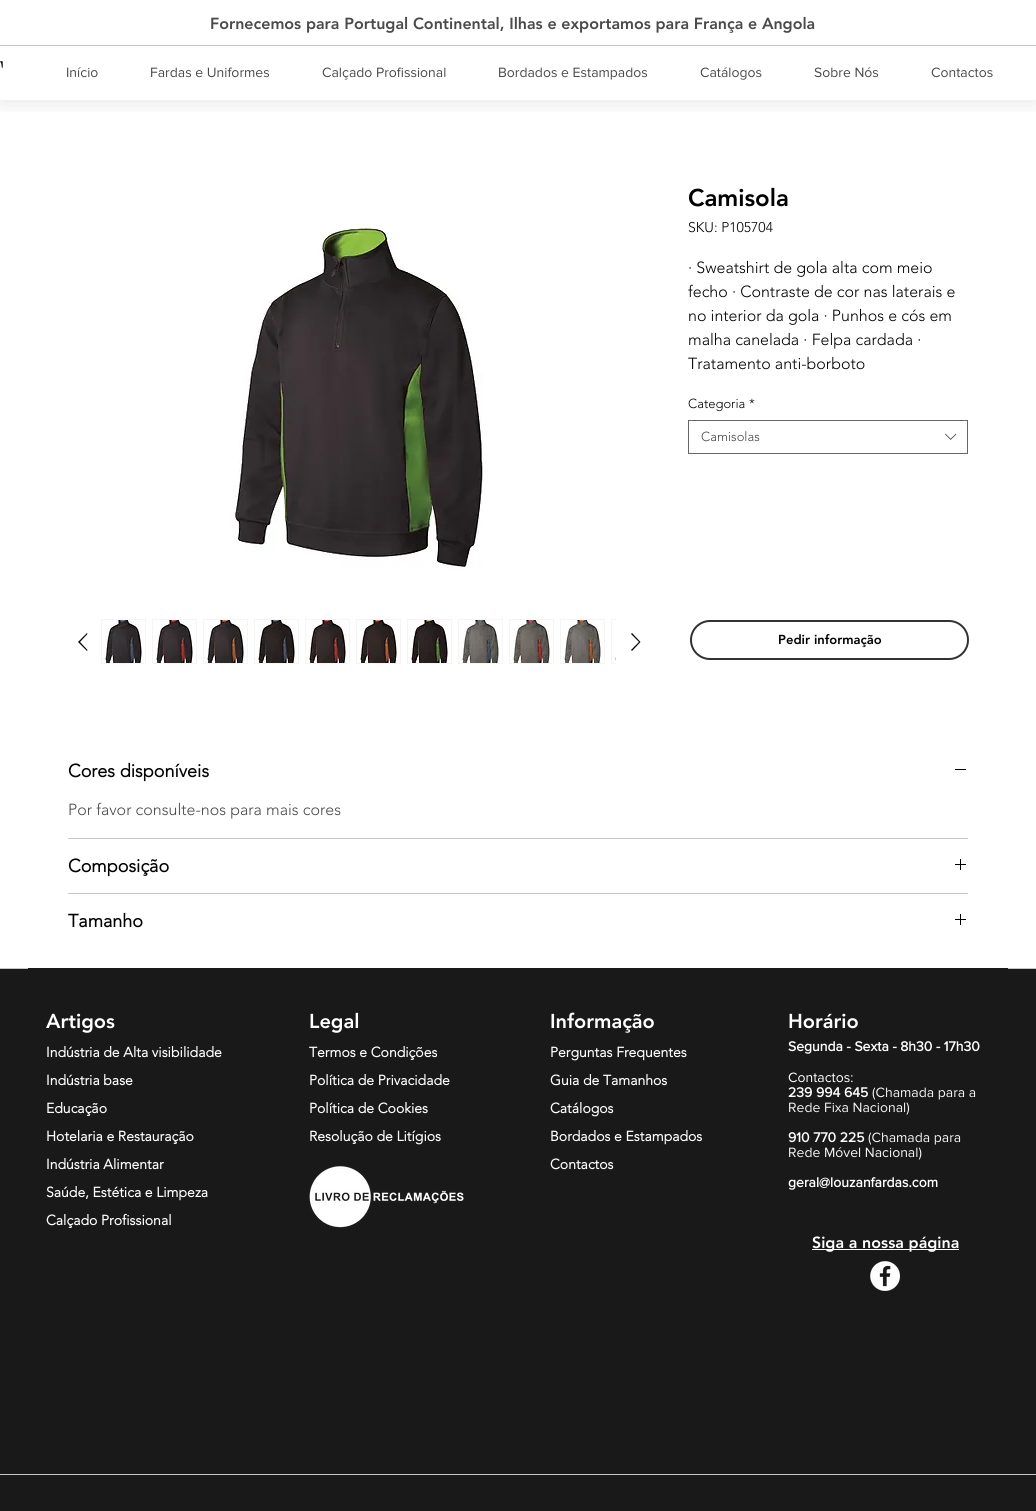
#include <cairo/cairo.h>
#include <math.h>
#include <stddef.h>

static cairo_t *cr;

static void use_color(int r, int g, int b) {
  cairo_set_source_rgb(cr, r / 255.0, g / 255.0, b / 255.0);
}

static void text(double x, double y, const char *s, const char *family, double size, int italic, int bold, int r, int g, int b) {
  cairo_select_font_face(cr, family, italic ? CAIRO_FONT_SLANT_ITALIC : CAIRO_FONT_SLANT_NORMAL,
    bold ? CAIRO_FONT_WEIGHT_BOLD : CAIRO_FONT_WEIGHT_NORMAL);
  cairo_set_font_size(cr, size);
  use_color(r, g, b);
  cairo_move_to(cr, x, y);
  cairo_show_text(cr, s);
}

static void box(double x, double y, double w, double h, int r, int g, int b) {
  use_color(r, g, b);
  cairo_rectangle(cr, x, y, w, h);
  cairo_fill(cr);
}

static void round_rect(double x, double y, double w, double h, double r) {
  cairo_new_sub_path(cr);
  cairo_arc(cr, x + w - r, y + h - r, r, 0, M_PI / 2);
  cairo_arc(cr, x + r, y + h - r, r, M_PI / 2, M_PI);
  cairo_arc(cr, x + r, y + r, r, M_PI, 1.5 * M_PI);
  cairo_arc(cr, x + w - r, y + r, r, 1.5 * M_PI, 2 * M_PI);
  cairo_close_path(cr);
}

static void shadow(double x, double y, double w, double h, double r, double blur, double alpha) {
  cairo_push_group_with_content(cr, CAIRO_CONTENT_ALPHA);
  cairo_set_operator(cr, CAIRO_OPERATOR_SOURCE);
  for (int i = 15; i >= -15 && fmin(w, h) + blur * i / 3 > 0; i -= 2) {
    double e = blur * i / 6;
    cairo_set_source_rgba(cr, 0, 0, 0, alpha * erfc((i - 1) / 8.5) / 2);
    round_rect(x - e, y - e, w + 2 * e, h + 2 * e, fmax(0, fmin(r + e + blur * .6, fmin(w, h) / 2 + e)));
    cairo_fill(cr);
  }
  cairo_pattern_t *soft = cairo_pop_group(cr);
  cairo_mask(cr, soft);
  cairo_pattern_destroy(soft);
}

static void picture(const char *path, double x, double y, double w, double h) {
  cairo_surface_t *image = cairo_image_surface_create_from_png(path);
  cairo_save(cr);
  cairo_set_source_surface(cr, image, x, y);
  cairo_rectangle(cr, x, y, w, h);
  cairo_fill(cr);
  cairo_restore(cr);
  cairo_surface_destroy(image);
}

static void draw(void) {
  use_color(255, 255, 255);
  cairo_paint(cr);
  cairo_save(cr);
  cairo_rectangle(cr, 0, 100, 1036, 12);
  cairo_clip(cr);
  use_color(0, 0, 0);
  shadow(0, 1, 1036, 100, 0, 12, 0.11);
  cairo_restore(cr);
  box(0, 45, 1036, 1, 199, 199, 199);
  picture("img_01.png", 0, 61, 3, 8);
  picture("img_02.png", 235, 224, 248, 344);
  use_color(0, 0, 0);
  cairo_set_fill_rule(cr, CAIRO_FILL_RULE_EVEN_ODD);
  cairo_new_path(cr);
  cairo_move_to(cr, 87, 633);
  cairo_line_to(cr, 87.5, 634);
  cairo_line_to(cr, 80, 642);
  cairo_line_to(cr, 87.5, 650);
  cairo_line_to(cr, 87, 651);
  cairo_line_to(cr, 78, 642);
  cairo_close_path(cr);
  cairo_fill(cr);
  box(101, 619, 45, 45, 245, 245, 245);
  picture("img_03.png", 102, 620, 43, 43);
  box(152, 619, 45, 45, 245, 245, 245);
  picture("img_04.png", 153, 620, 43, 43);
  box(203, 619, 45, 45, 245, 245, 245);
  picture("img_05.png", 204, 620, 43, 43);
  box(254, 619, 45, 45, 245, 245, 245);
  picture("img_06.png", 255, 620, 43, 43);
  box(305, 619, 45, 45, 245, 245, 245);
  picture("img_07.png", 306, 620, 43, 43);
  box(356, 619, 45, 45, 245, 245, 245);
  picture("img_08.png", 357, 620, 43, 43);
  box(407, 619, 45, 45, 245, 245, 245);
  picture("img_09.png", 408, 620, 43, 43);
  box(458, 619, 45, 45, 245, 245, 245);
  picture("img_10.png", 459, 620, 43, 43);
  box(509, 619, 45, 45, 245, 245, 245);
  picture("img_11.png", 510, 620, 43, 43);
  box(560, 619, 45, 45, 245, 245, 245);
  picture("img_12.png", 561, 620, 43, 43);
  box(611, 619, 5, 45, 245, 245, 245);
  picture("img_13.png", 612, 620, 4, 43);
  use_color(0, 0, 0);
  cairo_new_path(cr);
  cairo_move_to(cr, 632, 633);
  cairo_line_to(cr, 640.5, 642);
  cairo_line_to(cr, 632, 651);
  cairo_line_to(cr, 631, 650);
  cairo_line_to(cr, 639, 642);
  cairo_line_to(cr, 631, 634);
  cairo_close_path(cr);
  cairo_fill(cr);
  cairo_rectangle(cr, 688.5, 420.5, 279, 33);
  use_color(102, 102, 102);
  cairo_set_line_width(cr, 1);
  cairo_stroke(cr);
  picture("img_14.png", 945, 433, 12, 7);
  box(68, 838, 900, 1, 199, 199, 199);
  box(955, 769, 11, 1, 0, 0, 0);
  box(68, 893, 900, 1, 199, 199, 199);
  picture("img_15.png", 955, 859, 11, 11);
  picture("img_15.png", 955, 914, 11, 11);
  round_rect(691, 621, 277, 38, 19);
  use_color(50, 50, 50);
  cairo_set_line_width(cr, 2);
  cairo_stroke(cr);
  box(0, 969, 1036, 542, 25, 25, 25);
  box(0, 968, 1036, 1, 199, 199, 199);
  box(28, 968, 980, 1, 25, 25, 25);
  picture("img_16.png", 309, 1166, 155, 62);
  box(812, 1249, 147, 1, 255, 255, 255);
  picture("img_17.png", 870, 1261, 30, 30);
  box(0, 1474, 1036, 1, 199, 199, 199);
  text(210, 29, "Fornecemos para Portugal Continental, Ilhas e exportamos para França e Angola", "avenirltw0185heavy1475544 Black", 16, 0, 0, 74, 74, 74);
  text(66, 77, "Início", "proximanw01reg", 14, 0, 0, 74, 74, 74);
  text(150, 77, "Fardas e Uniformes", "proximanw01reg", 14, 0, 0, 74, 74, 74);
  text(322, 77, "Calçado Profissional", "proximanw01reg", 14, 0, 0, 74, 74, 74);
  text(498, 77, "Bordados e Estampados", "proximanw01reg", 14, 0, 0, 74, 74, 74);
  text(700, 77, "Catálogos", "proximanw01reg", 14, 0, 0, 74, 74, 74);
  text(814, 77, "Sobre Nós", "proximanw01reg", 14, 0, 0, 74, 74, 74);
  text(931, 77, "Contactos", "proximanw01reg", 14, 0, 0, 74, 74, 74);
  text(688, 206, "Camisola", "avenirltw0185heavy1475544 Black", 24, 0, 0, 0, 0, 0);
  text(688, 232, "SKU: P105704", "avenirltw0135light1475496 Light", 14, 0, 0, 0, 0, 0);
  text(688, 273, "· Sweatshirt de gola alta com meio", "avenirltw0135light1475496 Light", 16, 0, 0, 0, 0, 0);
  text(688, 297, "fecho · Contraste de cor nas laterais e", "avenirltw0135light1475496 Light", 16, 0, 0, 0, 0, 0);
  text(688, 321, "no interior da gola · Punhos e cós em", "avenirltw0135light1475496 Light", 16, 0, 0, 0, 0, 0);
  text(688, 345, "malha canelada · Felpa cardada ·", "avenirltw0135light1475496 Light", 16, 0, 0, 0, 0, 0);
  text(688, 369, "Tratamento anti-borboto", "avenirltw0135light1475496 Light", 16, 0, 0, 0, 0, 0);
  text(688, 408, "Categoria", "avenirltw0135light1475496 Light", 13, 0, 0, 0, 0, 0);
  text(749, 408, "*", "avenirltw0135light1475496 Light", 13, 0, 0, 0, 0, 0);
  text(701, 441, "Camisolas", "avenirltw0135light1475496 Light", 13, 0, 0, 68, 68, 68);
  text(68, 777, "Cores disponíveis", "avenirltw0135light1475496", 18, 0, 1, 0, 0, 0);
  text(68, 815, "Por favor consulte-nos para mais cores", "avenirltw0135light1475496 Light", 16, 0, 0, 74, 74, 74);
  text(68, 872, "Composição", "avenirltw0135light1475496", 18, 0, 1, 0, 0, 0);
  text(68, 927, "Tamanho", "avenirltw0135light1475496", 18, 0, 1, 0, 0, 0);
  text(778, 644, "Pedir informação", "avenirltw0185heavy1475544 Black", 13, 0, 0, 0, 0, 0);
  text(46, 1028, "Artigos", "avenirltw0185heavy1475544 Black", 20, 0, 0, 255, 255, 255);
  text(46, 1057, "Indústria de Alta visibilidade", "avenirltw0135light1475496", 14, 0, 1, 255, 255, 255);
  text(46, 1085, "Indústria base", "avenirltw0135light1475496", 14, 0, 1, 255, 255, 255);
  text(46, 1113, "Educação", "avenirltw0135light1475496", 14, 0, 1, 255, 255, 255);
  text(46, 1141, "Hotelaria e Restauração", "avenirltw0135light1475496", 14, 0, 1, 255, 255, 255);
  text(46, 1169, "Indústria Alimentar", "avenirltw0135light1475496", 14, 0, 1, 255, 255, 255);
  text(46, 1197, "Saúde, Estética e Limpeza", "avenirltw0135light1475496", 14, 0, 1, 255, 255, 255);
  text(46, 1225, "Calçado Profissional", "avenirltw0135light1475496", 14, 0, 1, 255, 255, 255);
  text(309, 1028, "Legal", "avenirltw0185heavy1475544 Black", 20, 0, 0, 255, 255, 255);
  text(309, 1057, "Termos e Condições", "avenirltw0135light1475496", 14, 0, 1, 255, 255, 255);
  text(309, 1085, "Política de Privacidade", "avenirltw0135light1475496", 14, 0, 1, 255, 255, 255);
  text(309, 1113, "Política de Cookies", "avenirltw0135light1475496", 14, 0, 1, 255, 255, 255);
  text(309, 1141, "Resolução de Litígios", "avenirltw0135light1475496", 14, 0, 1, 255, 255, 255);
  text(550, 1028, "Informação", "avenirltw0185heavy1475544 Black", 20, 0, 0, 255, 255, 255);
  text(550, 1057, "Perguntas Frequentes", "avenirltw0135light1475496", 14, 0, 1, 255, 255, 255);
  text(550, 1085, "Guia de Tamanhos", "avenirltw0135light1475496", 14, 0, 1, 255, 255, 255);
  text(550, 1113, "Catálogos", "avenirltw0135light1475496", 14, 0, 1, 255, 255, 255);
  text(550, 1141, "Bordados e Estampados", "avenirltw0135light1475496", 14, 0, 1, 255, 255, 255);
  text(550, 1169, "Contactos", "avenirltw0135light1475496", 14, 0, 1, 255, 255, 255);
  text(788, 1028, "Horário", "avenirltw0185heavy1475544 Black", 20, 0, 0, 255, 255, 255);
  text(788, 1051, "Segunda - Sexta - 8h30 - 17h30", "proximanw01reg", 14, 0, 1, 255, 255, 255);
  text(788, 1082, "Contactos:", "proximanw01reg", 14, 0, 0, 255, 255, 255);
  text(788, 1097, "239 994 645", "proximanw01reg", 14, 0, 1, 255, 255, 255);
  text(872, 1097, "(Chamada para a", "proximanw01reg", 14, 0, 0, 245, 245, 245);
  text(788, 1112, "Rede Fixa Nacional)", "proximanw01reg", 14, 0, 0, 245, 245, 245);
  text(788, 1142, "910 770 225", "proximanw01reg", 14, 0, 1, 255, 255, 255);
  text(868, 1142, "(Chamada para", "proximanw01reg", 14, 0, 0, 245, 245, 245);
  text(788, 1157, "Rede Móvel Nacional)", "proximanw01reg", 14, 0, 0, 245, 245, 245);
  text(788, 1187, "geral@louzanfardas.com", "proximanw01reg", 14, 0, 1, 255, 255, 255);
  text(812, 1248, "Siga a nossa página", "avenirltw0185heavy1475544 Black", 16, 0, 0, 255, 255, 255);
}

int main(void) {
  cairo_surface_t *surface = cairo_image_surface_create(CAIRO_FORMAT_RGB24, 1036, 1511);
  cr = cairo_create(surface);
  cairo_font_options_t *options = cairo_font_options_create();
  cairo_font_options_set_hint_metrics(options, CAIRO_HINT_METRICS_OFF);
  cairo_font_options_set_hint_style(options, CAIRO_HINT_STYLE_NONE);
  cairo_set_font_options(cr, options);
  cairo_set_miter_limit(cr, 4);
  draw();
  cairo_surface_write_to_png(surface, "out.png");
  cairo_font_options_destroy(options);
  cairo_destroy(cr);
  cairo_surface_destroy(surface);
  return 0;
}
